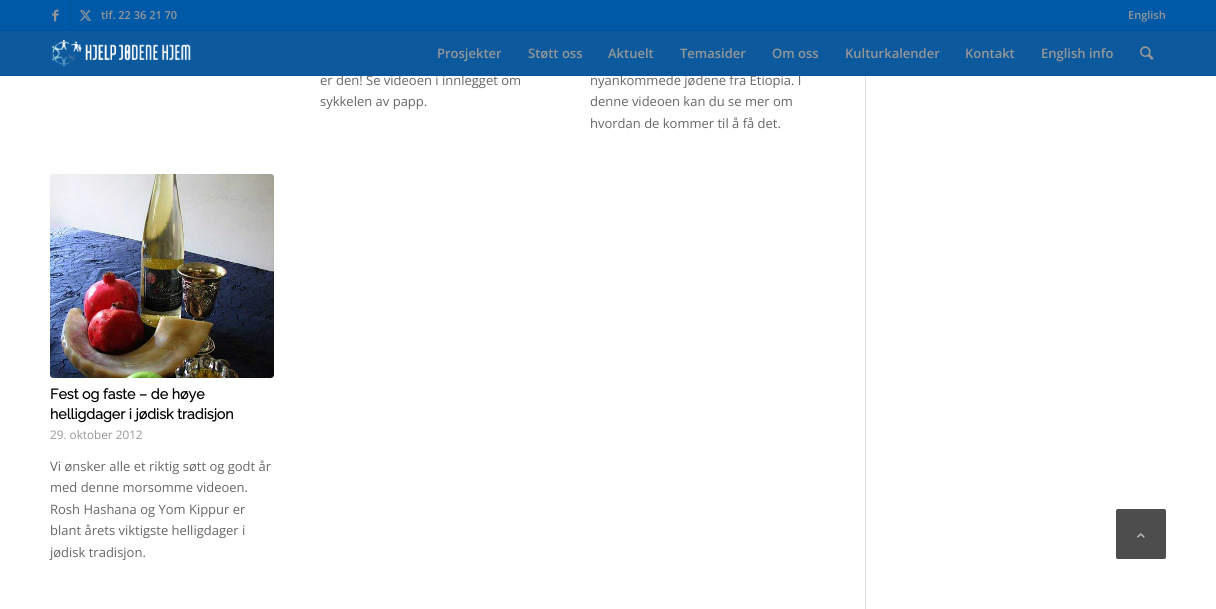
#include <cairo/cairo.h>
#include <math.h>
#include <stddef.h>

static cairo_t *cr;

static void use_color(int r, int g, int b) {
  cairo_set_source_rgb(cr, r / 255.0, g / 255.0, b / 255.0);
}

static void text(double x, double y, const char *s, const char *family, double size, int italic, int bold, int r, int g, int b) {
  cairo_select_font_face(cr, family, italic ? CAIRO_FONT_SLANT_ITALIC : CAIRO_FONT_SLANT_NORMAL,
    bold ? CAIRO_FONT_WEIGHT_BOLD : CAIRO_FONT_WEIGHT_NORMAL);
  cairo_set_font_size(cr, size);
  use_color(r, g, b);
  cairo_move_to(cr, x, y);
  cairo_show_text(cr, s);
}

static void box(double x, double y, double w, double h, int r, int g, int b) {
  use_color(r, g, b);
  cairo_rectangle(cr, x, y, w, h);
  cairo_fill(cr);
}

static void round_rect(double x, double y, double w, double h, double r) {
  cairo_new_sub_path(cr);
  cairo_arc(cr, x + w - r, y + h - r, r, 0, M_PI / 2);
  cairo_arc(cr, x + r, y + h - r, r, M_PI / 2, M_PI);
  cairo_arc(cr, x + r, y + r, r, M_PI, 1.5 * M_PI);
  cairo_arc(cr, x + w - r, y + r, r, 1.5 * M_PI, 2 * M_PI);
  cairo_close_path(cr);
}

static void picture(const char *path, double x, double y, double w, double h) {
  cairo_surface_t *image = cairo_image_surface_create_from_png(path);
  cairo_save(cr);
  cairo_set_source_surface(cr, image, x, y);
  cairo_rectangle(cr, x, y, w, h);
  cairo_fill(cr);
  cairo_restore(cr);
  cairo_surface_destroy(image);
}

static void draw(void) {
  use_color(255, 255, 255);
  cairo_paint(cr);
  box(0, 0, 1216, 30, 0, 89, 167);
  box(0, 30, 1216, 1, 0, 82, 153);
  box(70, 0, 1, 30, 0, 82, 153);
  picture("img_01.png", 52, 9, 7, 13);
  picture("img_02.png", 79, 10, 13, 11);
  box(865, 31, 1, 578, 225, 225, 225);
  cairo_set_source_rgba(cr, 0, 0.322, 0.6, 0.95);
  cairo_rectangle(cr, 0, 31, 1216, 44);
  cairo_fill(cr);
  picture("img_03.png", 51, 39, 140, 28);
  picture("img_04.png", 1140, 46, 14, 14);
  use_color(248, 248, 248);
  round_rect(50, 174, 224, 204, 3);
  cairo_fill(cr);
  picture("img_05.png", 50, 174, 224, 204);
  use_color(77, 77, 77);
  round_rect(1116.5, 509.5, 49, 49, 1.5);
  cairo_fill_preserve(cr);
  cairo_set_line_width(cr, 1);
  cairo_stroke(cr);
  picture("img_06.png", 1137, 533, 8, 5);
  text(101, 19, "tlf. 22 36 21 70", "Open Sans SemiBold", 11, 0, 0, 150, 150, 150);
  text(1128, 19, "English", "Open Sans SemiBold", 11, 0, 0, 150, 150, 150);
  text(437, 58, "Prosjekter", "Open Sans SemiBold", 13, 0, 0, 150, 150, 150);
  text(528, 58, "Støtt oss", "Open Sans SemiBold", 13, 0, 0, 150, 150, 150);
  text(608, 58, "Aktuelt", "Open Sans SemiBold", 13, 0, 0, 150, 150, 150);
  text(680, 58, "Temasider", "Open Sans SemiBold", 13, 0, 0, 150, 150, 150);
  text(772, 58, "Om oss", "Open Sans SemiBold", 13, 0, 0, 150, 150, 150);
  text(845, 58, "Kulturkalender", "Open Sans SemiBold", 13, 0, 0, 150, 150, 150);
  text(965, 58, "Kontakt", "Open Sans SemiBold", 13, 0, 0, 150, 150, 150);
  text(1041, 58, "English info", "Open Sans SemiBold", 13, 0, 0, 150, 150, 150);
  text(320, 85, "er den! Se videoen i innlegget om", "Open Sans", 13, 0, 0, 102, 102, 102);
  text(320, 106, "sykkelen av papp.", "Open Sans", 13, 0, 0, 102, 102, 102);
  text(590, 85, "nyankommede jødene fra Etiopia. I", "Open Sans", 13, 0, 0, 102, 102, 102);
  box(0, 75, 1216, 1, 0, 82, 153);
  text(590, 106, "denne videoen kan du se mer om", "Open Sans", 13, 0, 0, 102, 102, 102);
  text(590, 128, "hvordan de kommer til å få det.", "Open Sans", 13, 0, 0, 102, 102, 102);
  text(50, 399, "Fest og faste – de høye", "Raleway", 14.25, 0, 1, 0, 0, 0);
  text(50, 419, "helligdager i jødisk tradisjon", "Raleway", 14.25, 0, 1, 0, 0, 0);
  text(50, 439, "29. oktober 2012", "Open Sans", 11.75, 0, 0, 150, 150, 150);
  text(50, 471, "Vi ønsker alle et riktig søtt og godt år", "Open Sans", 13, 0, 0, 102, 102, 102);
  text(50, 492, "med denne morsomme videoen.", "Open Sans", 13, 0, 0, 102, 102, 102);
  text(50, 514, "Rosh Hashana og Yom Kippur er", "Open Sans", 13, 0, 0, 102, 102, 102);
  text(50, 535, "blant årets viktigste helligdager i", "Open Sans", 13, 0, 0, 102, 102, 102);
  text(50, 557, "jødisk tradisjon.", "Open Sans", 13, 0, 0, 102, 102, 102);
}

int main(void) {
  cairo_surface_t *surface = cairo_image_surface_create(CAIRO_FORMAT_RGB24, 1216, 609);
  cr = cairo_create(surface);
  cairo_font_options_t *options = cairo_font_options_create();
  cairo_font_options_set_hint_metrics(options, CAIRO_HINT_METRICS_OFF);
  cairo_font_options_set_hint_style(options, CAIRO_HINT_STYLE_NONE);
  cairo_set_font_options(cr, options);
  cairo_set_miter_limit(cr, 4);
  draw();
  cairo_surface_write_to_png(surface, "out.png");
  cairo_font_options_destroy(options);
  cairo_destroy(cr);
  cairo_surface_destroy(surface);
  return 0;
}
